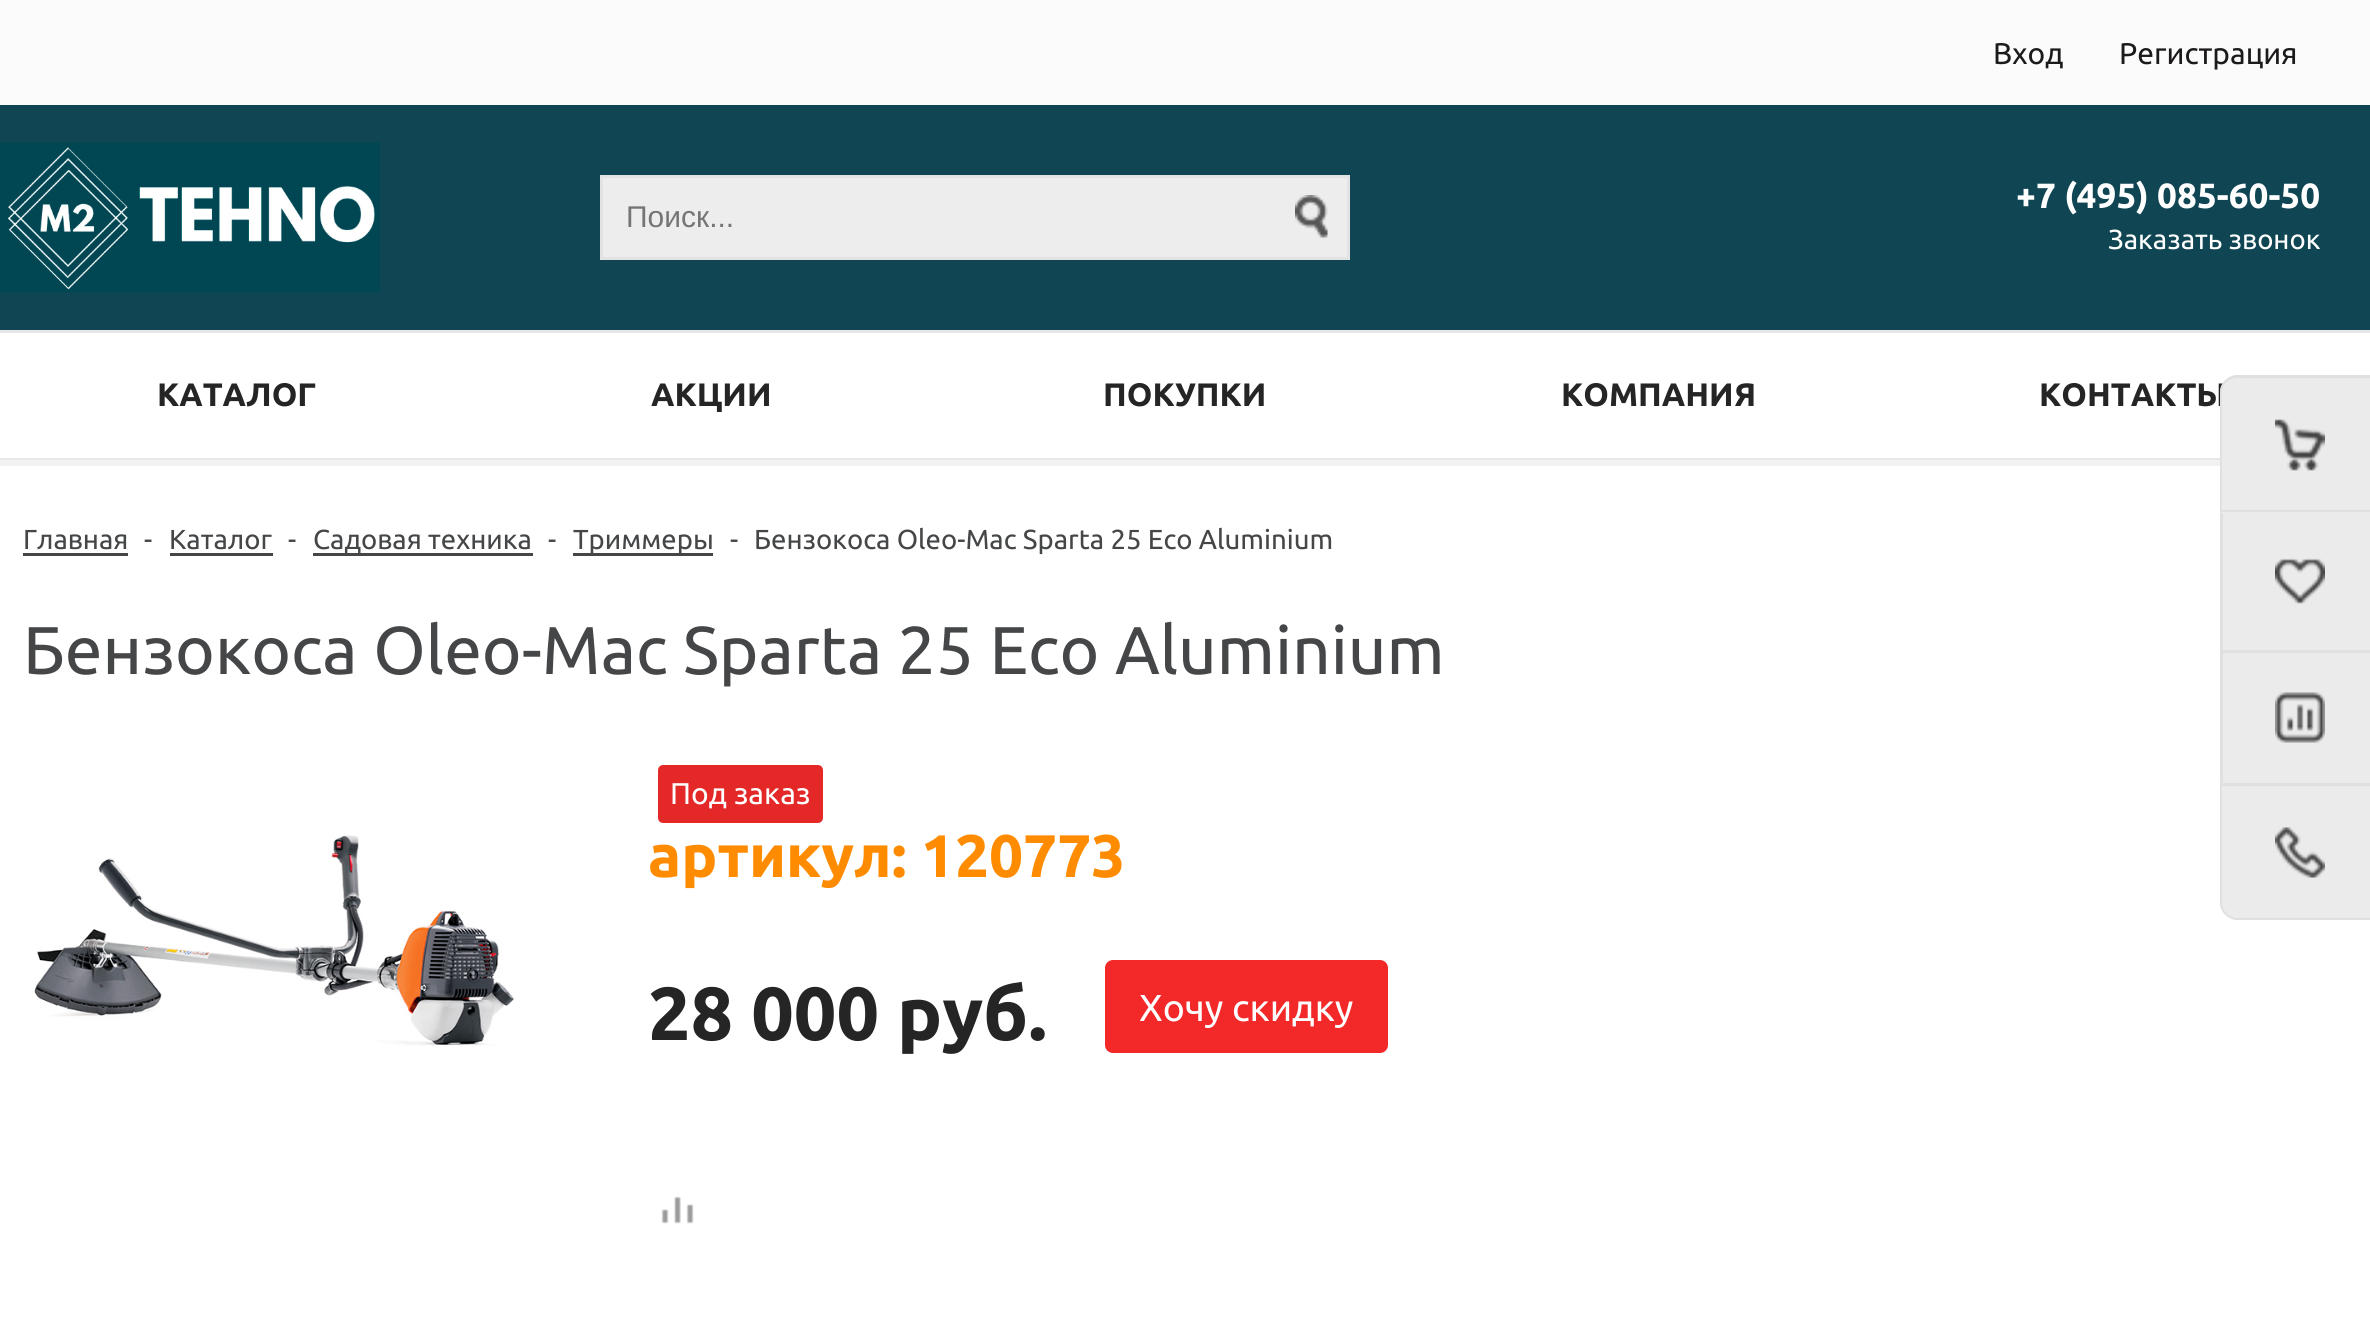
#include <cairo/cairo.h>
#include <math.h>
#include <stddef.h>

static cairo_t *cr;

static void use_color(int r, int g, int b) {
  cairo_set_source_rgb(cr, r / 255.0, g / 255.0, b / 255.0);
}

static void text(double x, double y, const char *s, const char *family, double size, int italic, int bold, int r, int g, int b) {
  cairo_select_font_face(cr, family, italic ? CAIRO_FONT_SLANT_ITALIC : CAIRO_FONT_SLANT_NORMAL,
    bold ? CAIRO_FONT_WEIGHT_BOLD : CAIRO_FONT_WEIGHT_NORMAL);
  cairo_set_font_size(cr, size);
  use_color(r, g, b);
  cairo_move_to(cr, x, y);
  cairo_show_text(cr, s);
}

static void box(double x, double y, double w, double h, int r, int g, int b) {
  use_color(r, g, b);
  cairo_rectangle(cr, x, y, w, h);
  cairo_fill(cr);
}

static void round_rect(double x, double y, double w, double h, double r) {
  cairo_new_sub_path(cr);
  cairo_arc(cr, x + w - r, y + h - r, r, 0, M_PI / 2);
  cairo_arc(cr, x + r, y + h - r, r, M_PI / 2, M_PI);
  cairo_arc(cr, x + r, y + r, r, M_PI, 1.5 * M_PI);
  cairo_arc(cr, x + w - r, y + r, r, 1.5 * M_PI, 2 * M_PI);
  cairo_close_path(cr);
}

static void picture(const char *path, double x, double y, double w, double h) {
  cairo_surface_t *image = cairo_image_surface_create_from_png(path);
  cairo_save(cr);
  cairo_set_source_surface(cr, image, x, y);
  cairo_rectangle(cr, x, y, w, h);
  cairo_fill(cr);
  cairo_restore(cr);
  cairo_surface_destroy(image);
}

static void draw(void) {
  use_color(255, 255, 255);
  cairo_paint(cr);
  box(0, 0, 2370, 105, 251, 251, 251);
  box(0, 105, 2370, 225, 16, 70, 83);
  picture("img_01.png", 0, 142, 380, 151);
  use_color(237, 237, 237);
  cairo_rectangle(cr, 601.5, 176.5, 747, 82);
  cairo_fill_preserve(cr);
  use_color(227, 227, 227);
  cairo_set_line_width(cr, 3);
  cairo_stroke(cr);
  picture("img_02.png", 1295, 195, 33, 43);
  box(0, 330, 2370, 3, 231, 231, 231);
  box(0, 458, 2220, 2, 231, 231, 231);
  box(0, 460, 2220, 6, 242, 242, 242);
  box(23, 553, 105, 3, 68, 70, 72);
  box(170, 553, 103, 3, 68, 70, 72);
  box(313, 553, 220, 3, 68, 70, 72);
  box(573, 553, 140, 3, 68, 70, 72);
  picture("img_07.png", 34, 835, 481, 211);
  use_color(228, 40, 40);
  round_rect(659.5, 766.5, 162, 55, 3.5);
  cairo_fill_preserve(cr);
  cairo_stroke(cr);
  use_color(243, 40, 40);
  round_rect(1105, 960, 283, 93, 8);
  cairo_fill(cr);
  picture("img_08.png", 661, 1196, 33, 28);
  text(1993, 64, "Вход", "Ubuntu", 30, 0, 0, 29, 26, 26);
  text(2119, 64, "Регистрация", "Ubuntu", 30, 0, 0, 29, 26, 26);
  text(626, 227, "Поиск...", "Liberation Sans", 30, 0, 0, 117, 117, 117);
  text(2016, 208, "+7 (495) 085-60-50", "Ubuntu", 35, 0, 1, 255, 255, 255);
  text(2108, 249, "Заказать звонок", "Ubuntu", 27.5, 0, 0, 255, 255, 255);
  text(157, 406, "КАТАЛОГ", "Ubuntu", 32.5, 0, 1, 37, 37, 37);
  text(651, 406, "АКЦИИ", "Ubuntu", 32.5, 0, 1, 37, 37, 37);
  text(1103, 406, "ПОКУПКИ", "Ubuntu", 32.5, 0, 1, 37, 37, 37);
  text(1561, 406, "КОМПАНИЯ", "Ubuntu", 32.5, 0, 1, 37, 37, 37);
  text(2039, 406, "КОНТАКТЫ", "Ubuntu", 32.5, 0, 1, 37, 37, 37);
  use_color(235, 235, 235);
  cairo_new_path(cr);
  cairo_move_to(cr, 2238, 375);
  cairo_line_to(cr, 2370, 375);
  cairo_line_to(cr, 2370, 920);
  cairo_line_to(cr, 2238, 920);
  cairo_curve_to(cr, 2228, 920, 2220, 912, 2220, 902);
  cairo_line_to(cr, 2220, 393);
  cairo_curve_to(cr, 2220, 383, 2228, 375, 2238, 375);
  cairo_close_path(cr);
  cairo_fill(cr);
  box(2220, 783, 150, 3, 224, 224, 224);
  cairo_set_fill_rule(cr, CAIRO_FILL_RULE_EVEN_ODD);
  cairo_new_path(cr);
  cairo_move_to(cr, 2220, 785);
  cairo_line_to(cr, 2370, 785);
  cairo_line_to(cr, 2370, 920);
  cairo_line_to(cr, 2238, 920);
  cairo_curve_to(cr, 2228, 920, 2220, 912, 2220, 902);
  cairo_close_path(cr);
  cairo_move_to(cr, 2222, 785);
  cairo_line_to(cr, 2370, 785);
  cairo_line_to(cr, 2370, 918);
  cairo_line_to(cr, 2238, 918);
  cairo_curve_to(cr, 2229, 918, 2222, 911, 2222, 902);
  cairo_close_path(cr);
  cairo_fill(cr);
  picture("img_06.png", 2275, 827, 50, 51);
  picture("img_05.png", 2275, 692, 50, 51);
  picture("img_04.png", 2275, 558, 50, 46);
  cairo_new_path(cr);
  cairo_move_to(cr, 2238, 375);
  cairo_line_to(cr, 2370, 375);
  cairo_line_to(cr, 2370, 512);
  cairo_line_to(cr, 2220, 512);
  cairo_line_to(cr, 2220, 392);
  cairo_curve_to(cr, 2220, 383, 2228, 375, 2238, 375);
  cairo_close_path(cr);
  cairo_move_to(cr, 2238, 378);
  cairo_line_to(cr, 2370, 378);
  cairo_line_to(cr, 2370, 510);
  cairo_line_to(cr, 2222, 510);
  cairo_line_to(cr, 2222, 392);
  cairo_curve_to(cr, 2222, 384, 2229, 378, 2238, 378);
  cairo_close_path(cr);
  cairo_fill(cr);
  picture("img_03.png", 2275, 419, 50, 52);
  box(2220, 653, 3, 132, 224, 224, 224);
  box(2220, 650, 150, 3, 224, 224, 224);
  box(2220, 513, 3, 140, 224, 224, 224);
  text(23, 549, "Главная", "Ubuntu", 27.5, 0, 0, 68, 70, 72);
  text(144, 549, "-", "Ubuntu", 27.5, 0, 0, 68, 70, 72);
  text(169, 549, "Каталог", "Ubuntu", 27.5, 0, 0, 68, 70, 72);
  text(288, 549, "-", "Ubuntu", 27.5, 0, 0, 68, 70, 72);
  text(313, 549, "Садовая техника", "Ubuntu", 27.5, 0, 0, 68, 70, 72);
  text(548, 549, "-", "Ubuntu", 27.5, 0, 0, 68, 70, 72);
  text(573, 549, "Триммеры", "Ubuntu", 27.5, 0, 0, 68, 70, 72);
  text(730, 549, "-", "Ubuntu", 27.5, 0, 0, 68, 70, 72);
  text(754, 549, "Бензокоса Oleo-Mac Sparta 25 Eco Aluminium", "Ubuntu", 27.5, 0, 0, 68, 70, 72);
  text(23, 674, "Бензокоса Oleo-Mac Sparta 25 Eco Aluminium", "Ubuntu", 67.5, 0, 0, 68, 70, 72);
  text(670, 804, "Под заказ", "Ubuntu", 30, 0, 0, 255, 255, 255);
  text(648, 877, "артикул: 120773", "Ubuntu", 60, 0, 1, 255, 140, 0);
  text(648, 1040, "28 000 руб.", "Ubuntu", 75, 0, 1, 37, 37, 37);
  text(1139, 1021, "Хочу скидку", "Ubuntu", 37.5, 0, 0, 255, 255, 255);
}

int main(void) {
  cairo_surface_t *surface = cairo_image_surface_create(CAIRO_FORMAT_RGB24, 2370, 1327);
  cr = cairo_create(surface);
  cairo_font_options_t *options = cairo_font_options_create();
  cairo_font_options_set_hint_metrics(options, CAIRO_HINT_METRICS_OFF);
  cairo_font_options_set_hint_style(options, CAIRO_HINT_STYLE_NONE);
  cairo_set_font_options(cr, options);
  cairo_set_miter_limit(cr, 4);
  draw();
  cairo_surface_write_to_png(surface, "out.png");
  cairo_font_options_destroy(options);
  cairo_destroy(cr);
  cairo_surface_destroy(surface);
  return 0;
}
